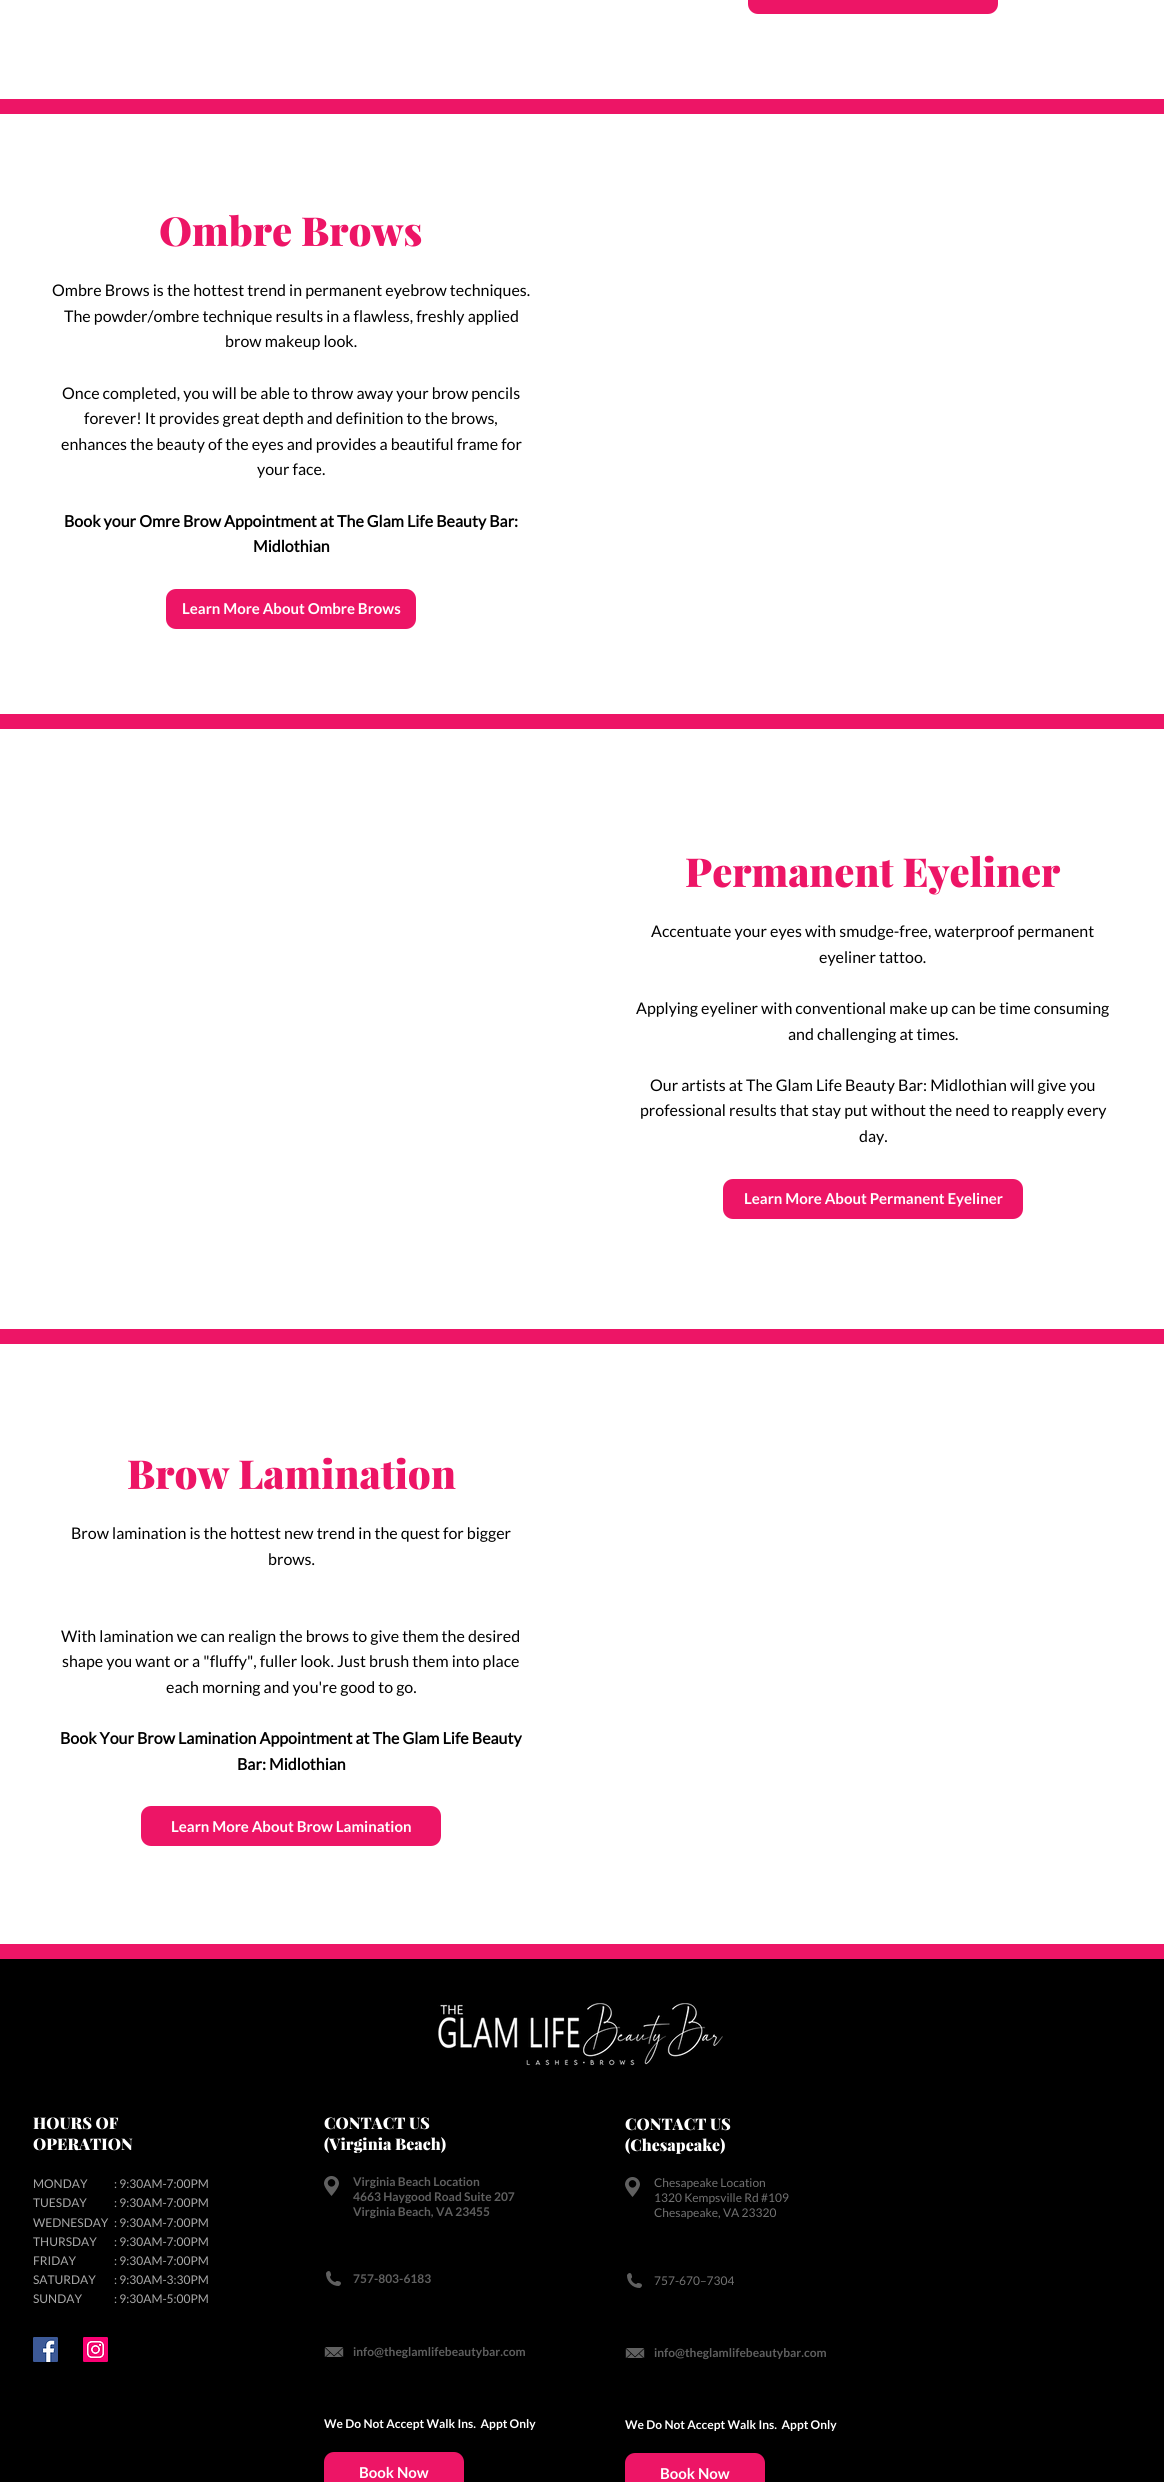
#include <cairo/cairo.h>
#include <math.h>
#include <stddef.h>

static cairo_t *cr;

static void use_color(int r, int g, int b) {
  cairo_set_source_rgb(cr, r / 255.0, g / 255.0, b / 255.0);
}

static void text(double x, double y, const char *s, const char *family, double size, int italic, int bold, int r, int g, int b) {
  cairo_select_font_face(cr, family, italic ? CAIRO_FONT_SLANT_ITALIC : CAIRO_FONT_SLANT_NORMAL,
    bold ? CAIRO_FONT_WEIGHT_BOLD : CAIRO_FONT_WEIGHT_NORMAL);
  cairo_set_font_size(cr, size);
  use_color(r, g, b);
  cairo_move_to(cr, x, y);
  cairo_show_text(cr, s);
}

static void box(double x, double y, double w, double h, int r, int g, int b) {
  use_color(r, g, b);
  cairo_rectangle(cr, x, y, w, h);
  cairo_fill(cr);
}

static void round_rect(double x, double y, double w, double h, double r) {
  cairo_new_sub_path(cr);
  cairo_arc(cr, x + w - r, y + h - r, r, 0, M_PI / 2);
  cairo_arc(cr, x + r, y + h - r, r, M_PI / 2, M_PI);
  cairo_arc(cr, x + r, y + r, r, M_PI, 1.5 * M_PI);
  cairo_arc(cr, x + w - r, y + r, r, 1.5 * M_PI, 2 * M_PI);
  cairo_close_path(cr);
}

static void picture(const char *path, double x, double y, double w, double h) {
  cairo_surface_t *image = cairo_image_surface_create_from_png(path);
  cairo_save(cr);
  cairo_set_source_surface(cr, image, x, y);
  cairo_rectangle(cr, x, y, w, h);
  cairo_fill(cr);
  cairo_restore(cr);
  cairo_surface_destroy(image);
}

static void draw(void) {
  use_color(255, 255, 255);
  cairo_paint(cr);
  use_color(237, 21, 102);
  round_rect(748, -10, 250, 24, 10);
  cairo_fill(cr);
  box(0, 99, 1164, 15, 237, 21, 102);
  round_rect(166, 589, 250, 40, 10);
  cairo_fill(cr);
  box(0, 714, 1164, 15, 237, 21, 102);
  round_rect(723, 1179, 300, 40, 10);
  cairo_fill(cr);
  box(0, 1329, 1164, 15, 237, 21, 102);
  round_rect(141, 1806, 300, 40, 10);
  cairo_fill(cr);
  box(0, 1944, 1164, 15, 237, 21, 102);
  box(0, 1959, 1164, 523, 0, 0, 0);
  picture("img_01.png", 438, 2003, 285, 63);
  picture("img_02.png", 33, 2337, 25, 25);
  picture("img_03.png", 83, 2337, 25, 25);
  picture("img_04.png", 324, 2176, 15, 20);
  picture("img_05.png", 326, 2271, 15, 15);
  picture("img_06.png", 324, 2347, 20, 10);
  use_color(237, 21, 102);
  round_rect(324, 2452, 140, 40, 10);
  cairo_fill(cr);
  picture("img_04.png", 625, 2177, 15, 20);
  picture("img_05.png", 627, 2273, 15, 15);
  picture("img_06.png", 625, 2348, 20, 10);
  round_rect(625, 2453, 140, 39, 10);
  cairo_fill(cr);
  text(159, 246, "Ombre Brows", "Playfair Display Black", 40, 0, 0, 237, 21, 102);
  text(52, 296, "Ombre Brows is the hottest trend in permanent eyebrow techniques.", "Lato", 16, 0, 0, 0, 0, 0);
  text(64, 322, "The powder/ombre technique results in a flawless, freshly applied", "Lato", 16, 0, 0, 0, 0, 0);
  text(225, 347, "brow makeup look.", "Lato", 16, 0, 0, 0, 0, 0);
  text(62, 399, "Once completed, you will be able to throw away your brow pencils", "Lato", 16, 0, 0, 0, 0, 0);
  text(84, 424, "forever! It provides great depth and definition to the brows,", "Lato", 16, 0, 0, 0, 0, 0);
  text(61, 450, "enhances the beauty of the eyes and provides a beautiful frame for", "Lato", 16, 0, 0, 0, 0, 0);
  text(257, 475, "your face.", "Lato", 16, 0, 0, 0, 0, 0);
  text(64, 527, "Book your Omre Brow Appointment at The Glam Life Beauty Bar:", "Lato", 16, 0, 1, 0, 0, 0);
  text(253, 552, "Midlothian", "Lato", 16, 0, 1, 0, 0, 0);
  text(182, 614, "Learn More About Ombre Brows", "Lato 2", 15, 0, 1, 255, 255, 255);
  text(685, 887, "Permanent Eyeliner", "Playfair Display Black", 40, 0, 0, 237, 21, 102);
  text(651, 937, "Accentuate your eyes with smudge-free, waterproof permanent", "Lato", 16, 0, 0, 0, 0, 0);
  text(819, 963, "eyeliner tattoo.", "Lato", 16, 0, 0, 0, 0, 0);
  text(636, 1014, "Applying eyeliner with conventional make up can be time consuming", "Lato", 16, 0, 0, 0, 0, 0);
  text(788, 1040, "and challenging at times.", "Lato", 16, 0, 0, 0, 0, 0);
  text(650, 1091, "Our artists at The Glam Life Beauty Bar: Midlothian will give you", "Lato", 16, 0, 0, 0, 0, 0);
  text(640, 1116, "professional results that stay put without the need to reapply every", "Lato", 16, 0, 0, 0, 0, 0);
  text(859, 1142, "day.", "Lato", 16, 0, 0, 0, 0, 0);
  text(744, 1204, "Learn More About Permanent Eyeliner", "Lato 2", 15, 0, 1, 255, 255, 255);
  text(127, 1489, "Brow Lamination", "Playfair Display Black", 40, 0, 0, 237, 21, 102);
  text(71, 1539, "Brow lamination is the hottest new trend in the quest for bigger", "Lato", 16, 0, 0, 0, 0, 0);
  text(268, 1565, "brows.", "Lato", 16, 0, 0, 0, 0, 0);
  text(61, 1642, "With lamination we can realign the brows to give them the desired", "Lato", 16, 0, 0, 0, 0, 0);
  text(62, 1667, "shape you want or a \"fluffy\", fuller look. Just brush them into place", "Lato", 16, 0, 0, 0, 0, 0);
  text(166, 1693, "each morning and you're good to go.", "Lato", 16, 0, 0, 0, 0, 0);
  text(60, 1744, "Book Your Brow Lamination Appointment at The Glam Life Beauty", "Lato", 16, 0, 1, 0, 0, 0);
  text(237, 1770, "Bar: Midlothian", "Lato", 16, 0, 1, 0, 0, 0);
  text(171, 1832, "Learn More About Brow Lamination", "Lato 2", 15, 0, 1, 255, 255, 255);
  text(33, 2129, "HOURS OF", "Playfair Display Black", 16, 0, 0, 255, 255, 255);
  text(33, 2150, "OPERATION", "Playfair Display Black", 16, 0, 0, 255, 255, 255);
  text(33, 2188, "MONDAY", "Lato", 12, 0, 0, 168, 168, 168);
  text(33, 2207, "TUESDAY", "Lato", 12, 0, 0, 168, 168, 168);
  text(33, 2227, "WEDNESDAY", "Lato", 12, 0, 0, 168, 168, 168);
  text(33, 2246, "THURSDAY", "Lato", 12, 0, 0, 168, 168, 168);
  text(33, 2265, "FRIDAY", "Lato", 12, 0, 0, 168, 168, 168);
  text(33, 2284, "SATURDAY", "Lato", 12, 0, 0, 168, 168, 168);
  text(33, 2303, "SUNDAY", "Lato", 12, 0, 0, 168, 168, 168);
  text(114, 2188, ": 9:30AM-7:00PM", "Lato", 12, 0, 0, 168, 168, 168);
  text(114, 2207, ": 9:30AM-7:00PM", "Lato", 12, 0, 0, 168, 168, 168);
  text(114, 2227, ": 9:30AM-7:00PM", "Lato", 12, 0, 0, 168, 168, 168);
  text(114, 2246, ": 9:30AM-7:00PM", "Lato", 12, 0, 0, 168, 168, 168);
  text(114, 2265, ": 9:30AM-7:00PM", "Lato", 12, 0, 0, 168, 168, 168);
  text(114, 2284, ": 9:30AM-3:30PM", "Lato", 12, 0, 0, 168, 168, 168);
  text(114, 2303, ": 9:30AM-5:00PM", "Lato", 12, 0, 0, 168, 168, 168);
  text(324, 2129, "CONTACT US", "Playfair Display Black", 16, 0, 0, 255, 255, 255);
  text(324, 2150, "(Virginia Beach)", "Playfair Display Black", 16, 0, 0, 255, 255, 255);
  text(353, 2186, "Virginia Beach Location", "Lato 2", 12, 0, 1, 96, 96, 96);
  text(353, 2201, "4663 Haygood Road Suite 207", "Lato 2", 12, 0, 1, 96, 96, 96);
  text(353, 2216, "Virginia Beach, VA 23455", "Lato 2", 12, 0, 1, 96, 96, 96);
  text(353, 2283, "757-803-6183", "Lato 2", 12, 0, 1, 96, 96, 96);
  text(353, 2356, "info@theglamlifebeautybar.com", "Lato 2", 12, 0, 1, 96, 96, 96);
  text(324, 2428, "We Do Not Accept Walk Ins.  Appt Only", "Lato 2", 12, 0, 1, 255, 255, 255);
  text(359, 2478, "Book Now", "Lato 2", 15, 0, 1, 255, 255, 255);
  text(625, 2130, "CONTACT US", "Playfair Display Black", 16, 0, 0, 255, 255, 255);
  text(625, 2151, "(Chesapeake)", "Playfair Display Black", 16, 0, 0, 255, 255, 255);
  text(654, 2187, "Chesapeake Location", "Lato", 12, 0, 0, 114, 114, 114);
  text(654, 2202, "1320 Kempsville Rd #109", "Lato", 12, 0, 0, 114, 114, 114);
  text(654, 2217, "Chesapeake, VA 23320", "Lato", 12, 0, 0, 114, 114, 114);
  text(654, 2285, "757-670–7304", "Lato", 12, 0, 0, 114, 114, 114);
  text(654, 2357, "info@theglamlifebeautybar.com", "Lato 2", 12, 0, 1, 96, 96, 96);
  text(625, 2429, "We Do Not Accept Walk Ins.  Appt Only", "Lato 2", 12, 0, 1, 255, 255, 255);
  text(660, 2479, "Book Now", "Lato 2", 15, 0, 1, 255, 255, 255);
}

int main(void) {
  cairo_surface_t *surface = cairo_image_surface_create(CAIRO_FORMAT_RGB24, 1164, 2482);
  cr = cairo_create(surface);
  cairo_font_options_t *options = cairo_font_options_create();
  cairo_font_options_set_hint_metrics(options, CAIRO_HINT_METRICS_OFF);
  cairo_font_options_set_hint_style(options, CAIRO_HINT_STYLE_NONE);
  cairo_set_font_options(cr, options);
  cairo_set_miter_limit(cr, 4);
  draw();
  cairo_surface_write_to_png(surface, "out.png");
  cairo_font_options_destroy(options);
  cairo_destroy(cr);
  cairo_surface_destroy(surface);
  return 0;
}
